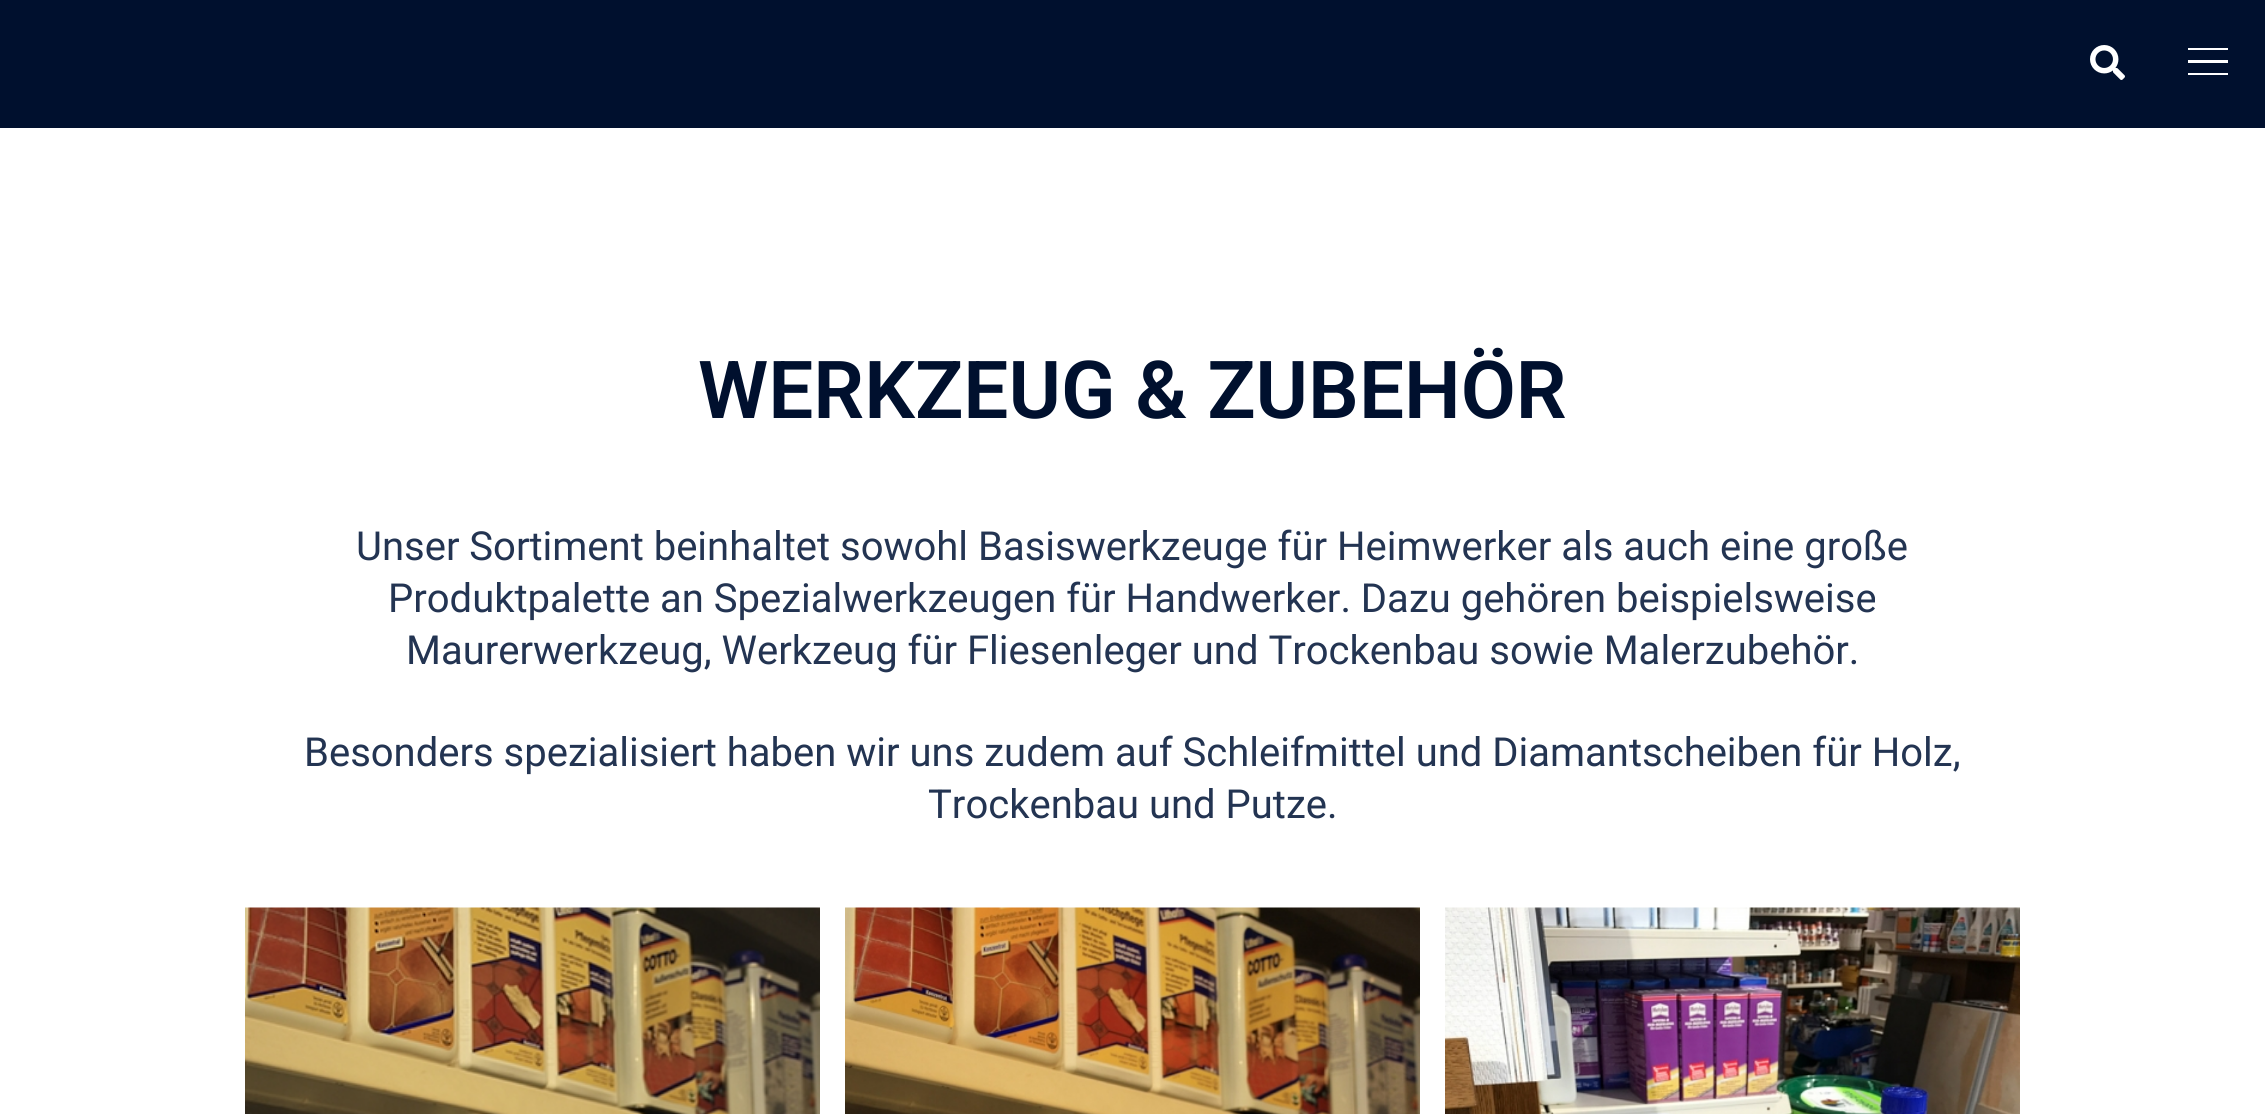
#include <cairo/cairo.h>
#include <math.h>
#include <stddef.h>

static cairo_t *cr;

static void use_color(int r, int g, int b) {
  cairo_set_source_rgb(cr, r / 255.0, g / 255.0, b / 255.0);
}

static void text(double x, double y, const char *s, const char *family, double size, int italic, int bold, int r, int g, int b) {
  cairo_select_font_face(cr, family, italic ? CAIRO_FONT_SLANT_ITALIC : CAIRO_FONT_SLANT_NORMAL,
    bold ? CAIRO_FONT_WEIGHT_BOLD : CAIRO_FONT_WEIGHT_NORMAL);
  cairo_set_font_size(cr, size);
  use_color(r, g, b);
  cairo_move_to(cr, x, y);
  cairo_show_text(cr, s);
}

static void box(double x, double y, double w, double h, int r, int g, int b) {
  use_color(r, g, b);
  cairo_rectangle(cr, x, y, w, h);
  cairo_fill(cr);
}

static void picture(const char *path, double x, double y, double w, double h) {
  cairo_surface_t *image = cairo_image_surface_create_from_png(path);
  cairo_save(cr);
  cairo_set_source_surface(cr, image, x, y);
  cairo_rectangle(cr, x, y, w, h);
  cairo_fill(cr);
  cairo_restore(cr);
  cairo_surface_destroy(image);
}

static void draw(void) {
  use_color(255, 255, 255);
  cairo_paint(cr);
  box(0, 0, 2265, 128, 0, 16, 46);
  picture("img_01.png", 2090, 45, 35, 35);
  box(2188, 48, 40, 2, 255, 255, 255);
  box(2188, 60, 40, 3, 255, 255, 255);
  box(2188, 73, 40, 2, 255, 255, 255);
  picture("img_02.png", 245, 907, 575, 207);
  picture("img_03.png", 845, 907, 575, 207);
  picture("img_04.png", 1445, 907, 575, 207);
  text(698, 418, "WERKZEUG & ZUBEHÖR", "Roboto SemiBold", 80, 0, 0, 0, 16, 46);
  text(356, 560, "Unser Sortiment beinhaltet sowohl Basiswerkzeuge für Heimwerker als auch eine große", "Roboto", 40, 0, 0, 35, 52, 82);
  text(388, 612, "Produktpalette an Spezialwerkzeugen für Handwerker. Dazu gehören beispielsweise", "Roboto", 40, 0, 0, 35, 52, 82);
  text(406, 664, "Maurerwerkzeug, Werkzeug für Fliesenleger und Trockenbau sowie Malerzubehör.", "Roboto", 40, 0, 0, 35, 52, 82);
  text(304, 766, "Besonders spezialisiert haben wir uns zudem auf Schleifmittel und Diamantscheiben für Holz,", "Roboto", 40, 0, 0, 35, 52, 82);
  text(928, 818, "Trockenbau und Putze.", "Roboto", 40, 0, 0, 35, 52, 82);
}

int main(void) {
  cairo_surface_t *surface = cairo_image_surface_create(CAIRO_FORMAT_RGB24, 2265, 1114);
  cr = cairo_create(surface);
  cairo_font_options_t *options = cairo_font_options_create();
  cairo_font_options_set_hint_metrics(options, CAIRO_HINT_METRICS_OFF);
  cairo_font_options_set_hint_style(options, CAIRO_HINT_STYLE_NONE);
  cairo_set_font_options(cr, options);
  cairo_set_miter_limit(cr, 4);
  draw();
  cairo_surface_write_to_png(surface, "out.png");
  cairo_font_options_destroy(options);
  cairo_destroy(cr);
  cairo_surface_destroy(surface);
  return 0;
}
